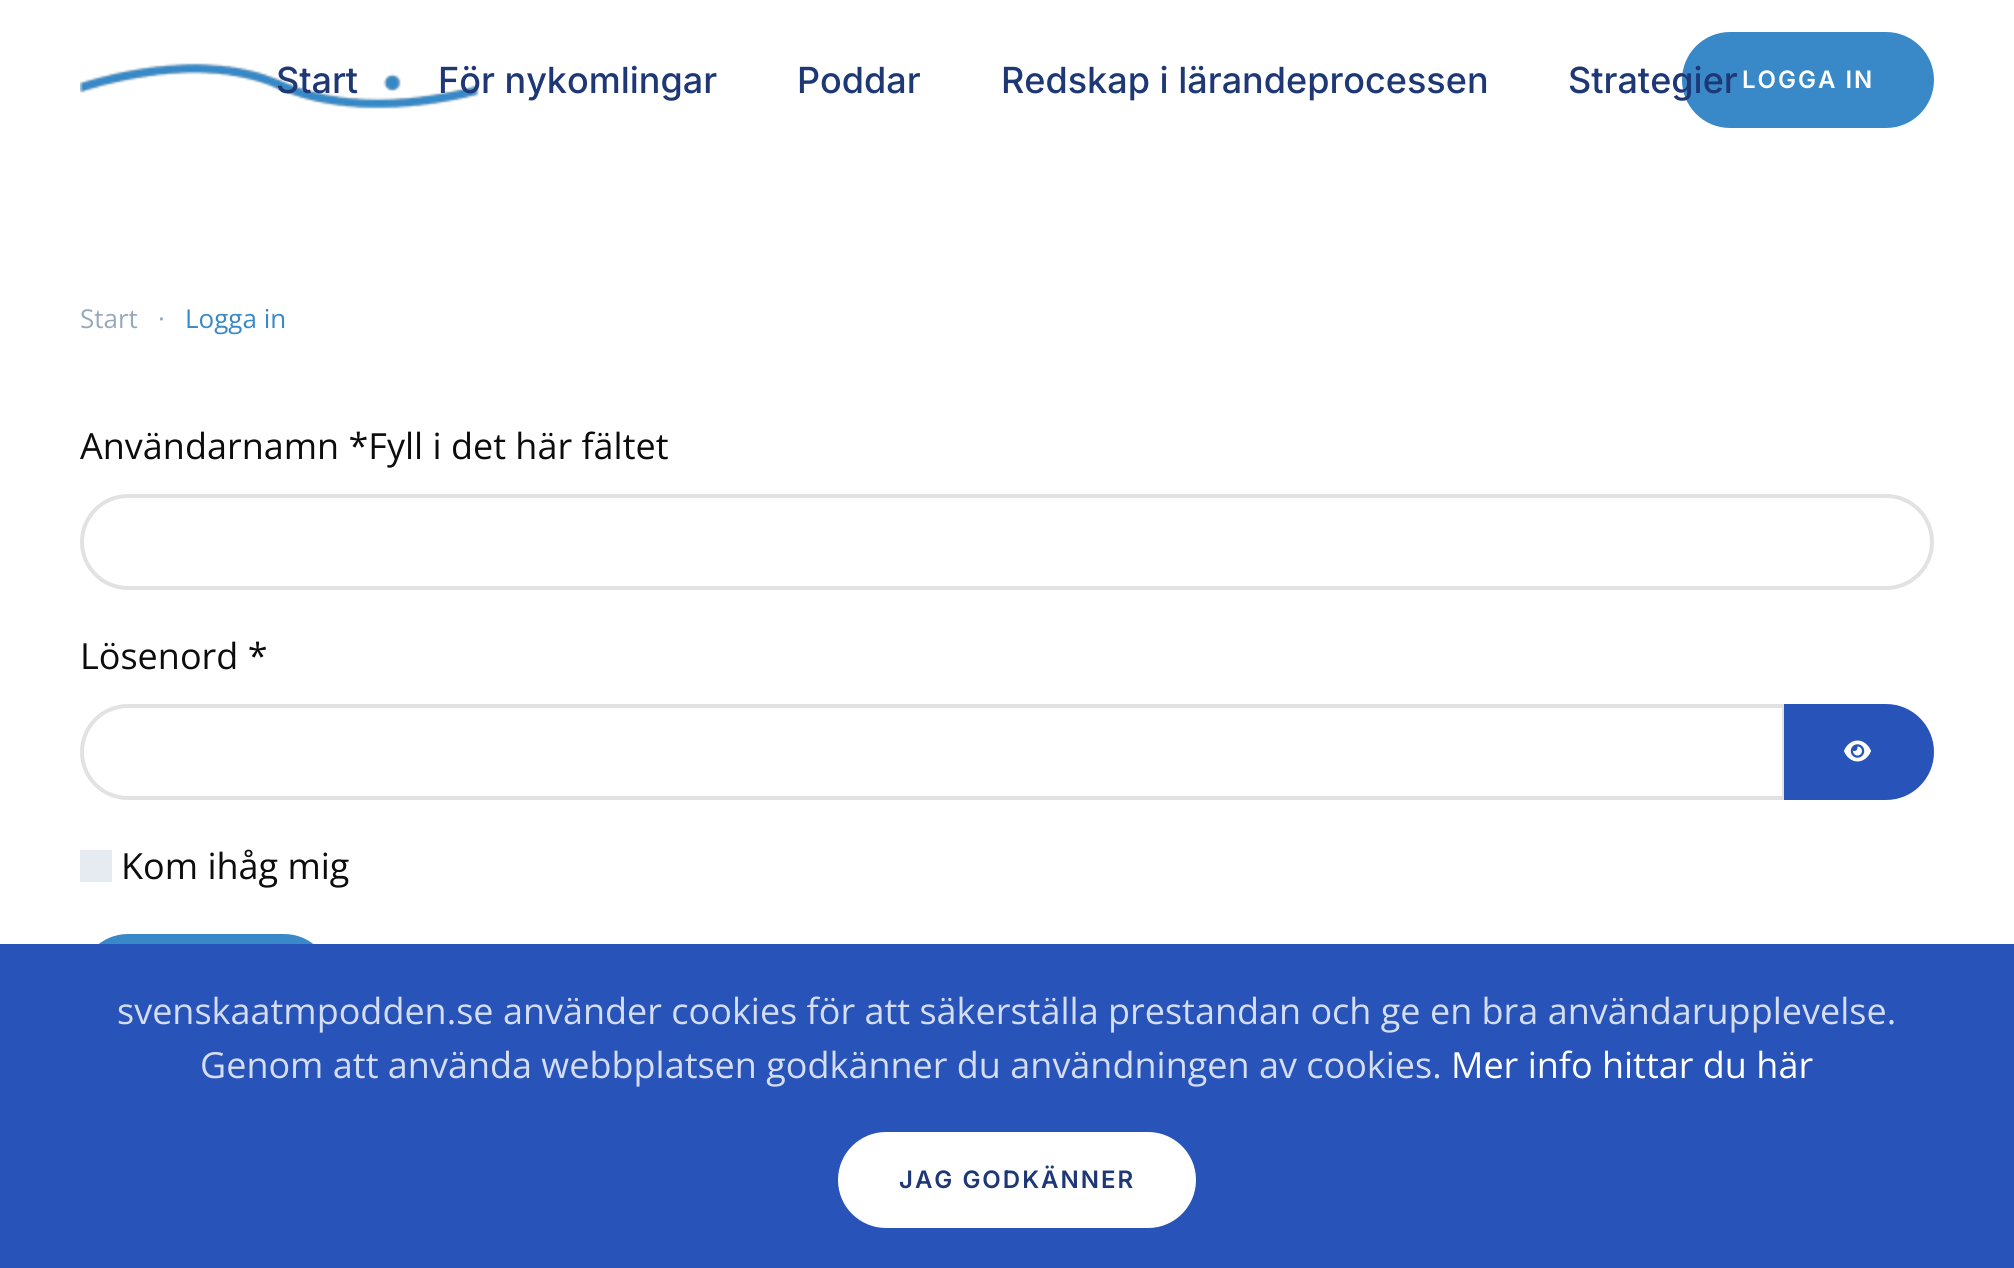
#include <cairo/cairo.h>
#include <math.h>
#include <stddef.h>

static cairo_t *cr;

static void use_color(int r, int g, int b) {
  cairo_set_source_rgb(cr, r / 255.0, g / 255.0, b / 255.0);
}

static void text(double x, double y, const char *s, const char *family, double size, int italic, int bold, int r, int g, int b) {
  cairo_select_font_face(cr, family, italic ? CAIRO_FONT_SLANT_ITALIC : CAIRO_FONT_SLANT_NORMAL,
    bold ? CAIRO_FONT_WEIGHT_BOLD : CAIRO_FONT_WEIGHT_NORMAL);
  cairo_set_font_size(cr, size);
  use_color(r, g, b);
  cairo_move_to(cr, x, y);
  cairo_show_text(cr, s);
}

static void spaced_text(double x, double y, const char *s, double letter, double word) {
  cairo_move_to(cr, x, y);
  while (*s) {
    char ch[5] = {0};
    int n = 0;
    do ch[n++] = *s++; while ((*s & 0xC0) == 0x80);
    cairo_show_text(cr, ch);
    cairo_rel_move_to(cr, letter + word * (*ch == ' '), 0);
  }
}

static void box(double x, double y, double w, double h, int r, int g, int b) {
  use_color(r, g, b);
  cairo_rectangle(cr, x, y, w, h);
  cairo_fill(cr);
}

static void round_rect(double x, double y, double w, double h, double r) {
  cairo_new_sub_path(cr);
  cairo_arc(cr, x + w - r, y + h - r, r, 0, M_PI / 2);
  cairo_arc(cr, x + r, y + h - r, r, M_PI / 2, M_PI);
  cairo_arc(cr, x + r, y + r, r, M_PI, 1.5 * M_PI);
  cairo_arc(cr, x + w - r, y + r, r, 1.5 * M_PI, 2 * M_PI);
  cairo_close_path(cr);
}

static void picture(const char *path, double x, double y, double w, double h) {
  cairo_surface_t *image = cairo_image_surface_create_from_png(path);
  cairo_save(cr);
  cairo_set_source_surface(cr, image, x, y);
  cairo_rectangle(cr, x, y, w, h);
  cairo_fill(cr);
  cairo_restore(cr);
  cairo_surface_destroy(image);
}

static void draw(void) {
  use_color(255, 255, 255);
  cairo_paint(cr);
  picture("img_01.png", 80, 63, 399, 46);
  use_color(57, 136, 200);
  round_rect(1682, 32, 252, 96, 48);
  cairo_fill(cr);
  round_rect(82, 496, 1850, 92, 46);
  use_color(226, 226, 226);
  cairo_set_line_width(cr, 4);
  cairo_stroke(cr);
  cairo_new_path(cr);
  cairo_move_to(cr, 128, 706);
  cairo_line_to(cr, 1784, 706);
  cairo_line_to(cr, 1784, 798);
  cairo_line_to(cr, 128, 798);
  cairo_curve_to(cr, 102.5, 798, 82, 777.5, 82, 752);
  cairo_curve_to(cr, 82, 726.5, 102.5, 706, 128, 706);
  cairo_close_path(cr);
  cairo_stroke(cr);
  use_color(40, 83, 185);
  cairo_new_path(cr);
  cairo_move_to(cr, 1784, 704);
  cairo_line_to(cr, 1886, 704);
  cairo_curve_to(cr, 1912.5, 704, 1934, 725.5, 1934, 752);
  cairo_curve_to(cr, 1934, 778.5, 1912.5, 800, 1886, 800);
  cairo_line_to(cr, 1784, 800);
  cairo_close_path(cr);
  cairo_fill(cr);
  picture("img_02.png", 1844, 740, 27, 22);
  box(80, 850, 32, 32, 230, 235, 241);
  use_color(57, 136, 200);
  round_rect(80, 934, 252, 96, 48);
  cairo_fill(cr);
  box(0, 944, 2014, 324, 40, 83, 185);
  use_color(255, 255, 255);
  round_rect(838, 1132, 358, 96, 48);
  cairo_fill(cr);
  text(276, 93, "Start", "Inter Medium", 36, 0, 0, 30, 56, 118);
  text(438, 93, "För nykomlingar", "Inter Medium", 36, 0, 0, 30, 56, 118);
  text(797, 93, "Poddar", "Inter Medium", 36, 0, 0, 30, 56, 118);
  text(1001, 93, "Redskap i lärandeprocessen", "Inter Medium", 36, 0, 0, 30, 56, 118);
  text(1568, 93, "Strategier", "Inter Medium", 36, 0, 0, 30, 56, 118);
  cairo_select_font_face(cr, "Inter SemiBold", CAIRO_FONT_SLANT_NORMAL, CAIRO_FONT_WEIGHT_NORMAL);
  cairo_set_font_size(cr, 24);
  use_color(255, 255, 255);
  spaced_text(1742, 88, "LOGGA IN", 2, 0);
  text(80, 328, "Start", "Open Sans", 26, 0, 0, 150, 168, 187);
  text(158, 328, "·", "Open Sans", 26, 0, 0, 150, 168, 187);
  text(185, 328, "Logga in", "Open Sans", 26, 0, 0, 57, 136, 200);
  text(80, 459, "Användarnamn *Fyll i det här fältet", "Open Sans", 36, 0, 0, 12, 12, 12);
  text(80, 669, "Lösenord *", "Open Sans", 36, 0, 0, 12, 12, 12);
  text(121, 879, "Kom ihåg mig", "Open Sans", 36, 0, 0, 12, 12, 12);
  text(117, 1024, "svenskaatmpodden.se använder cookies för att säkerställa prestandan och ge en bra användarupplevelse.", "Open Sans", 36, 0, 0, 212, 221, 241);
  text(200, 1078, "Genom att använda webbplatsen godkänner du användningen av cookies.", "Open Sans", 36, 0, 0, 212, 221, 241);
  text(1451, 1078, "Mer info hittar du här", "Open Sans", 36, 0, 0, 255, 255, 255);
  cairo_select_font_face(cr, "Inter SemiBold", CAIRO_FONT_SLANT_NORMAL, CAIRO_FONT_WEIGHT_NORMAL);
  cairo_set_font_size(cr, 24);
  use_color(30, 56, 118);
  spaced_text(899, 1188, "JAG GODKÄNNER", 2, 0);
}

int main(void) {
  cairo_surface_t *surface = cairo_image_surface_create(CAIRO_FORMAT_RGB24, 2014, 1268);
  cr = cairo_create(surface);
  cairo_font_options_t *options = cairo_font_options_create();
  cairo_font_options_set_hint_metrics(options, CAIRO_HINT_METRICS_OFF);
  cairo_font_options_set_hint_style(options, CAIRO_HINT_STYLE_NONE);
  cairo_set_font_options(cr, options);
  cairo_set_miter_limit(cr, 4);
  draw();
  cairo_surface_write_to_png(surface, "out.png");
  cairo_font_options_destroy(options);
  cairo_destroy(cr);
  cairo_surface_destroy(surface);
  return 0;
}
